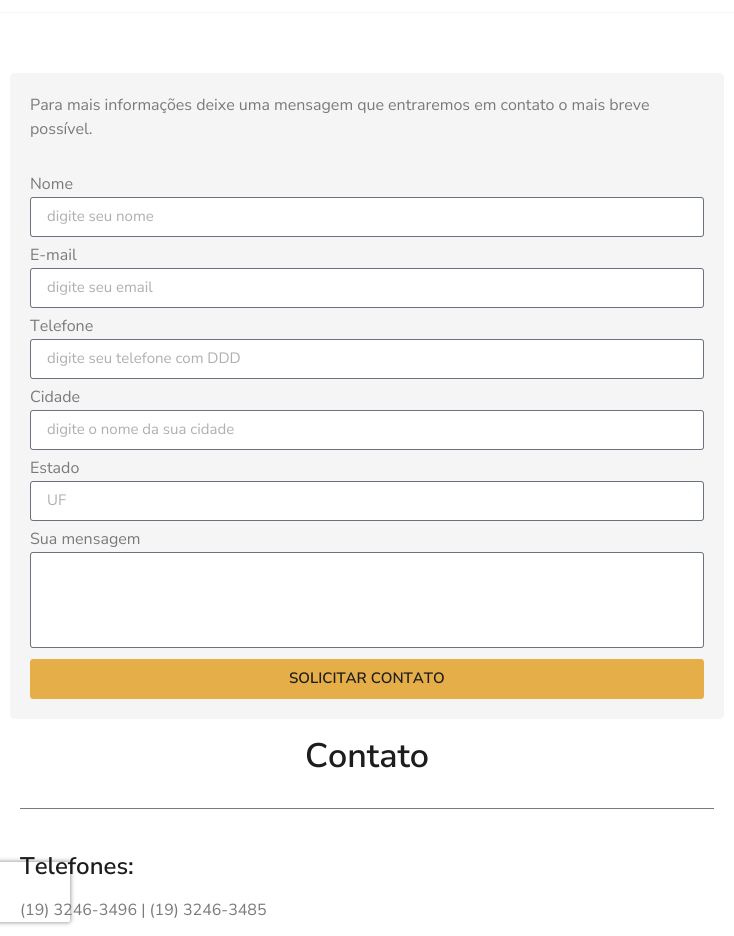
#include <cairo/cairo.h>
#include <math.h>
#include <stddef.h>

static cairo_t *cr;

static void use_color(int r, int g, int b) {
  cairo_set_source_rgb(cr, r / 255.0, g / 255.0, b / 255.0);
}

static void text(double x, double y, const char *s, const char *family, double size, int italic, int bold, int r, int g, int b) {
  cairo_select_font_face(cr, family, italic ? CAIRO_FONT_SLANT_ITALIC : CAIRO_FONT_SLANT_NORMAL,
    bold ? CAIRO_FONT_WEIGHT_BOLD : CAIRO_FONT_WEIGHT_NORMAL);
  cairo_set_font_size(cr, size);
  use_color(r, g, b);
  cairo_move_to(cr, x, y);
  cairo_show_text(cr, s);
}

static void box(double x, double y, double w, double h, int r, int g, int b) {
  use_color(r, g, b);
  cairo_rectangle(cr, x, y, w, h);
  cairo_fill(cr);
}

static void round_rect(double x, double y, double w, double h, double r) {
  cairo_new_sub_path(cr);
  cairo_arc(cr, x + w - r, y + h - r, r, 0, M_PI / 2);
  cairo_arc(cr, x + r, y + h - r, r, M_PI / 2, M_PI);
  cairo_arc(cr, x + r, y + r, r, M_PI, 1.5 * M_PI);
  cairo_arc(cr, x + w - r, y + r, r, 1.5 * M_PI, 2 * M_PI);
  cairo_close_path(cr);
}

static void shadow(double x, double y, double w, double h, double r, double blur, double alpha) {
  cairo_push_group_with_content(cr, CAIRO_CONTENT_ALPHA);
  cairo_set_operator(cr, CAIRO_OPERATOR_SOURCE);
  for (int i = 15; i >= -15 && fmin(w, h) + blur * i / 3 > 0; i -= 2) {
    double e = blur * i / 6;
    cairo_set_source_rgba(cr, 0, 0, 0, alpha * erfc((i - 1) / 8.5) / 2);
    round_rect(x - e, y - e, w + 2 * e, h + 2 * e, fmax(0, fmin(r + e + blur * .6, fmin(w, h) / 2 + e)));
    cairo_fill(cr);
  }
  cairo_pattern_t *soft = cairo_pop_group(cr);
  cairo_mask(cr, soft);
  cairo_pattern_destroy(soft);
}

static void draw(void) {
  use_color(255, 255, 255);
  cairo_paint(cr);
  box(0, 12, 734, 1, 245, 245, 245);
  round_rect(10, 73, 714, 646, 5);
  cairo_fill(cr);
  use_color(255, 255, 255);
  round_rect(30.5, 197.5, 673, 39, 2.5);
  cairo_fill_preserve(cr);
  use_color(105, 114, 125);
  cairo_set_line_width(cr, 1);
  cairo_stroke(cr);
  use_color(255, 255, 255);
  round_rect(30.5, 268.5, 673, 39, 2.5);
  cairo_fill_preserve(cr);
  use_color(105, 114, 125);
  cairo_stroke(cr);
  use_color(255, 255, 255);
  round_rect(30.5, 339.5, 673, 39, 2.5);
  cairo_fill_preserve(cr);
  use_color(105, 114, 125);
  cairo_stroke(cr);
  use_color(255, 255, 255);
  round_rect(30.5, 410.5, 673, 39, 2.5);
  cairo_fill_preserve(cr);
  use_color(105, 114, 125);
  cairo_stroke(cr);
  use_color(255, 255, 255);
  round_rect(30.5, 481.5, 673, 39, 2.5);
  cairo_fill_preserve(cr);
  use_color(105, 114, 125);
  cairo_stroke(cr);
  use_color(255, 255, 255);
  round_rect(30.5, 552.5, 673, 95, 2.5);
  cairo_fill_preserve(cr);
  use_color(105, 114, 125);
  cairo_stroke(cr);
  use_color(230, 174, 72);
  round_rect(30, 659, 674, 40, 3);
  cairo_fill(cr);
  cairo_save(cr);
  cairo_set_fill_rule(cr, CAIRO_FILL_RULE_EVEN_ODD);
  cairo_new_path(cr);
  cairo_move_to(cr, 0, 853);
  cairo_line_to(cr, 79, 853);
  cairo_line_to(cr, 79, 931);
  cairo_line_to(cr, 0, 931);
  cairo_close_path(cr);
  cairo_move_to(cr, -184, 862);
  cairo_line_to(cr, 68, 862);
  cairo_curve_to(cr, 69, 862, 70, 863, 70, 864);
  cairo_line_to(cr, 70, 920);
  cairo_curve_to(cr, 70, 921, 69, 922, 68, 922);
  cairo_line_to(cr, -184, 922);
  cairo_curve_to(cr, -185, 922, -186, 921, -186, 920);
  cairo_line_to(cr, -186, 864);
  cairo_curve_to(cr, -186, 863, -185, 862, -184, 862);
  cairo_close_path(cr);
  cairo_clip(cr);
  use_color(128, 128, 128);
  shadow(-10, 862, 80, 60, 2, 2.5, 1);
  cairo_restore(cr);
  box(20, 808, 694, 1, 122, 122, 122);
  text(30, 110, "Para mais informações deixe uma mensagem que entraremos em contato o mais breve", "Nunito Sans", 16, 0, 0, 122, 122, 122);
  text(30, 134, "possível.", "Nunito Sans", 16, 0, 0, 122, 122, 122);
  text(30, 189, "Nome", "Nunito Sans", 16, 0, 0, 122, 122, 122);
  text(47, 221, "digite seu nome", "Nunito Sans", 15, 0, 0, 175, 175, 175);
  text(30, 260, "E-mail", "Nunito Sans", 16, 0, 0, 122, 122, 122);
  text(47, 292, "digite seu email", "Nunito Sans", 15, 0, 0, 175, 175, 175);
  text(30, 331, "Telefone", "Nunito Sans", 16, 0, 0, 122, 122, 122);
  text(47, 363, "digite seu telefone com DDD", "Nunito Sans", 15, 0, 0, 175, 175, 175);
  text(30, 402, "Cidade", "Nunito Sans", 16, 0, 0, 122, 122, 122);
  text(47, 434, "digite o nome da sua cidade", "Nunito Sans", 15, 0, 0, 175, 175, 175);
  text(30, 473, "Estado", "Nunito Sans", 16, 0, 0, 122, 122, 122);
  text(47, 505, "UF", "Nunito Sans", 15, 0, 0, 175, 175, 175);
  text(30, 544, "Sua mensagem", "Nunito Sans", 16, 0, 0, 122, 122, 122);
  text(289, 683, "SOLICITAR CONTATO", "Nunito Sans SemiBold", 15, 0, 0, 29, 29, 29);
  text(305, 767, "Contato", "Nunito Sans SemiBold", 34, 0, 0, 29, 29, 29);
  text(20, 874, "Telefones:", "Nunito Sans SemiBold", 24, 0, 0, 29, 29, 29);
  text(20, 915, "(19) 3246-3496 | (19) 3246-3485", "Nunito Sans", 16, 0, 0, 122, 122, 122);
}

int main(void) {
  cairo_surface_t *surface = cairo_image_surface_create(CAIRO_FORMAT_RGB24, 734, 936);
  cr = cairo_create(surface);
  cairo_font_options_t *options = cairo_font_options_create();
  cairo_font_options_set_hint_metrics(options, CAIRO_HINT_METRICS_OFF);
  cairo_font_options_set_hint_style(options, CAIRO_HINT_STYLE_NONE);
  cairo_set_font_options(cr, options);
  cairo_set_miter_limit(cr, 4);
  draw();
  cairo_surface_write_to_png(surface, "out.png");
  cairo_font_options_destroy(options);
  cairo_destroy(cr);
  cairo_surface_destroy(surface);
  return 0;
}
